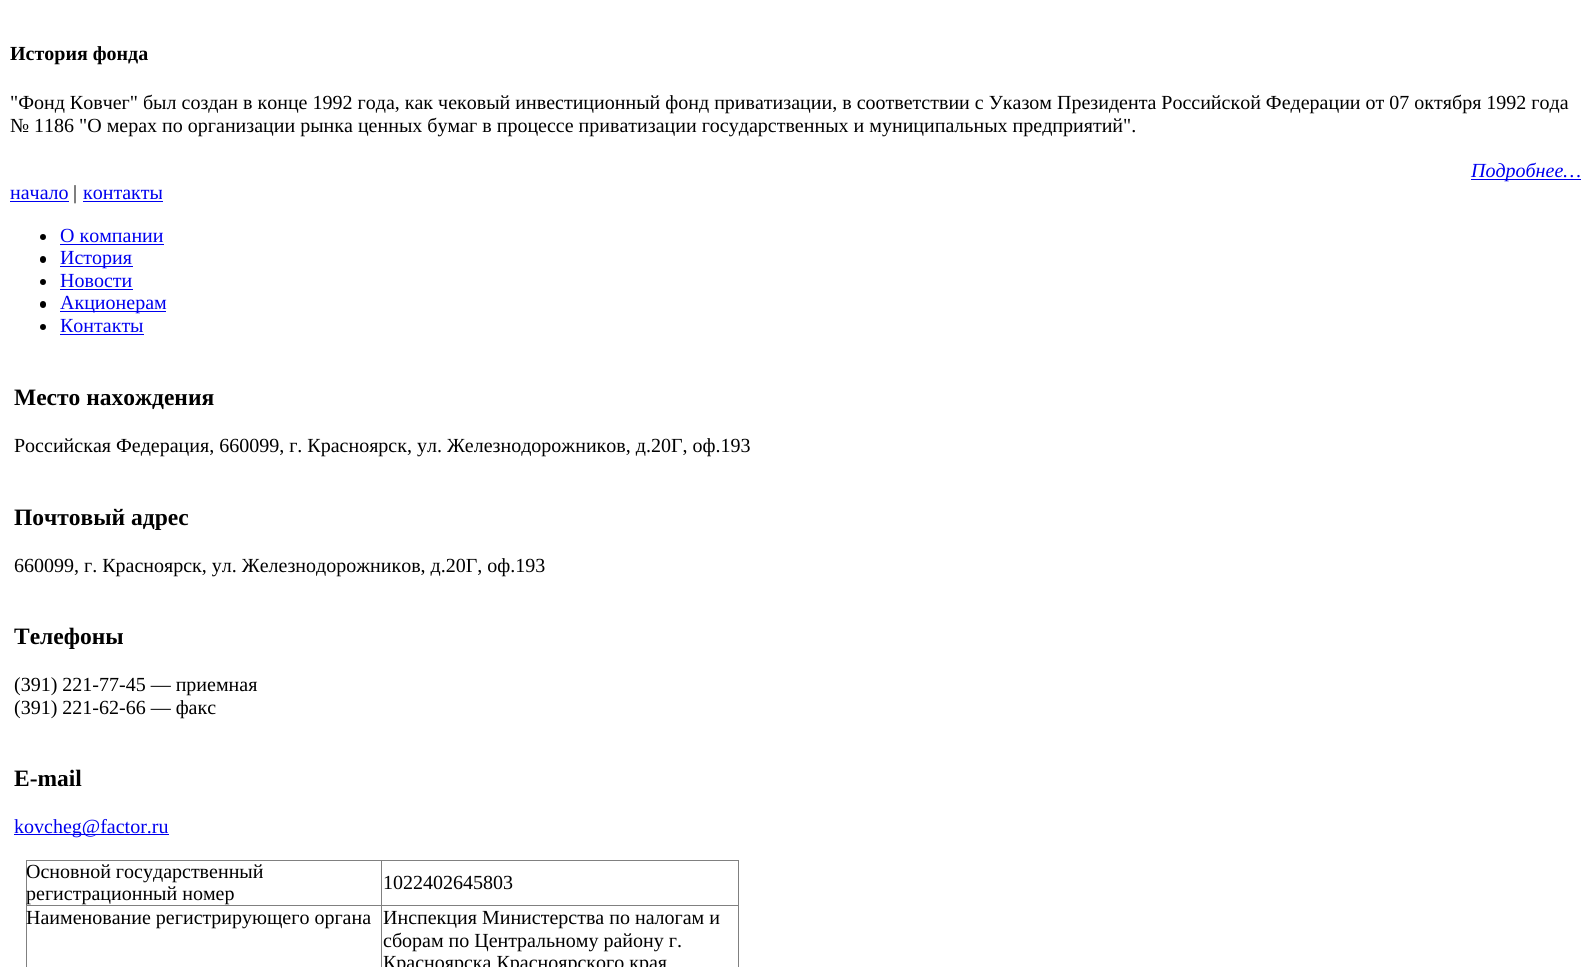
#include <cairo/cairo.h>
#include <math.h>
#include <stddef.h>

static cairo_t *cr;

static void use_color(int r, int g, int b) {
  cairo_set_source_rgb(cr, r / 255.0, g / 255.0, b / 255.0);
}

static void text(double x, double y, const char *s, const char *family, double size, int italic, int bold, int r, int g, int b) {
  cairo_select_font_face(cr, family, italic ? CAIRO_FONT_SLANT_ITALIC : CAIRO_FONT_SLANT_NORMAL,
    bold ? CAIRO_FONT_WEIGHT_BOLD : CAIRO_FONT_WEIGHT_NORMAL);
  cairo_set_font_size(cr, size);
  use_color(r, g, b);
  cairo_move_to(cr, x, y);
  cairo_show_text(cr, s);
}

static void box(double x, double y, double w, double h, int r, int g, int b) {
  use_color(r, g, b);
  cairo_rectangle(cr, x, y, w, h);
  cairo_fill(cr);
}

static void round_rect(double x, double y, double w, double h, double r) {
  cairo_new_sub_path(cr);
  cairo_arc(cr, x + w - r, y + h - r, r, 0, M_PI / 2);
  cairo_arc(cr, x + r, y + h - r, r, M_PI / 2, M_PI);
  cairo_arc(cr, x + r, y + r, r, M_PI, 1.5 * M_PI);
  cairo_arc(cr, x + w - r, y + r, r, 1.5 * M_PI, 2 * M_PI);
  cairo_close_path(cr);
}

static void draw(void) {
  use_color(255, 255, 255);
  cairo_paint(cr);
  box(1471, 179, 110, 1, 0, 0, 238);
  box(10, 201, 59, 1, 0, 0, 238);
  box(83, 201, 80, 1, 0, 0, 238);
  use_color(0, 0, 0);
  cairo_arc(cr, 43, 237, 3, 0, 2 * M_PI);
  cairo_fill(cr);
  box(60, 244, 104, 1, 0, 0, 238);
  use_color(0, 0, 0);
  round_rect(40, 256, 6, 7, 3);
  cairo_fill(cr);
  box(60, 266, 73, 1, 0, 0, 238);
  use_color(0, 0, 0);
  cairo_arc(cr, 43, 282, 3, 0, 2 * M_PI);
  cairo_fill(cr);
  box(60, 289, 73, 1, 0, 0, 238);
  use_color(0, 0, 0);
  round_rect(40, 301, 6, 7, 3);
  cairo_fill(cr);
  box(60, 311, 106, 1, 0, 0, 238);
  use_color(0, 0, 0);
  cairo_arc(cr, 43, 327, 3, 0, 2 * M_PI);
  cairo_fill(cr);
  box(60, 334, 84, 1, 0, 0, 238);
  box(14, 834, 155, 1, 0, 0, 238);
  box(381, 860, 358, 1, 128, 128, 128);
  box(381, 905, 358, 1, 128, 128, 128);
  box(381, 905, 1, 62, 128, 128, 128);
  box(26, 905, 357, 1, 128, 128, 128);
  box(381, 860, 1, 46, 128, 128, 128);
  box(26, 860, 357, 1, 128, 128, 128);
  box(26, 905, 1, 62, 128, 128, 128);
  box(26, 860, 1, 46, 128, 128, 128);
  box(738, 905, 1, 62, 128, 128, 128);
  box(738, 860, 1, 46, 128, 128, 128);
  text(10, 60, "История фонда", "Liberation Serif", 20, 0, 1, 0, 0, 0);
  text(10, 109, "\"Фонд Ковчег\" был создан в конце 1992 года, как чековый инвестиционный фонд приватизации, в соответствии с Указом Президента Российской Федерации от 07 октября 1992 года", "Liberation Serif", 20, 0, 0, 0, 0, 0);
  text(10, 132, "№ 1186 \"О мерах по организации рынка ценных бумаг в процессе приватизации государственных и муниципальных предприятий\".", "Liberation Serif", 20, 0, 0, 0, 0, 0);
  text(1471, 177, "Подробнее…", "Liberation Serif", 20, 1, 0, 0, 0, 238);
  text(10, 199, "начало", "Liberation Serif", 20, 0, 0, 0, 0, 238);
  text(73, 199, "|", "Liberation Serif", 20, 0, 0, 0, 0, 0);
  text(83, 199, "контакты", "Liberation Serif", 20, 0, 0, 0, 0, 238);
  text(60, 242, "О компании", "Liberation Serif", 20, 0, 0, 0, 0, 238);
  text(60, 264, "История", "Liberation Serif", 20, 0, 0, 0, 0, 238);
  text(60, 287, "Новости", "Liberation Serif", 20, 0, 0, 0, 0, 238);
  text(60, 309, "Акционерам", "Liberation Serif", 20, 0, 0, 0, 0, 238);
  text(60, 332, "Контакты", "Liberation Serif", 20, 0, 0, 0, 0, 238);
  text(14, 405, "Место нахождения", "Liberation Serif", 23.5, 0, 1, 0, 0, 0);
  text(14, 452, "Российская Федерация, 660099, г. Красноярск, ул. Железнодорожников, д.20Г, оф.193", "Liberation Serif", 20, 0, 0, 0, 0, 0);
  text(14, 525, "Почтовый адрес", "Liberation Serif", 23.5, 0, 1, 0, 0, 0);
  text(14, 572, "660099, г. Красноярск, ул. Железнодорожников, д.20Г, оф.193", "Liberation Serif", 20, 0, 0, 0, 0, 0);
  text(14, 644, "Телефоны", "Liberation Serif", 23.5, 0, 1, 0, 0, 0);
  text(14, 691, "(391) 221-77-45 — приемная", "Liberation Serif", 20, 0, 0, 0, 0, 0);
  text(14, 714, "(391) 221-62-66 — факс", "Liberation Serif", 20, 0, 0, 0, 0, 0);
  text(14, 786, "E-mail", "Liberation Serif", 23.5, 0, 1, 0, 0, 0);
  text(14, 833, "kovcheg@factor.ru", "Liberation Serif", 20, 0, 0, 0, 0, 238);
  text(26, 878, "Основной государственный", "Liberation Serif", 20, 0, 0, 0, 0, 0);
  text(26, 900, "регистрационный номер", "Liberation Serif", 20, 0, 0, 0, 0, 0);
  text(383, 889, "1022402645803", "Liberation Serif", 20, 0, 0, 0, 0, 0);
  text(26, 924, "Наименование регистрирующего органа", "Liberation Serif", 20, 0, 0, 0, 0, 0);
  text(383, 924, "Инспекция Министерства по налогам и", "Liberation Serif", 20, 0, 0, 0, 0, 0);
  text(383, 947, "сборам по Центральному району г.", "Liberation Serif", 20, 0, 0, 0, 0, 0);
  text(383, 969, "Красноярска Красноярского края", "Liberation Serif", 20, 0, 0, 0, 0, 0);
}

int main(void) {
  cairo_surface_t *surface = cairo_image_surface_create(CAIRO_FORMAT_RGB24, 1591, 967);
  cr = cairo_create(surface);
  cairo_font_options_t *options = cairo_font_options_create();
  cairo_font_options_set_hint_metrics(options, CAIRO_HINT_METRICS_OFF);
  cairo_font_options_set_hint_style(options, CAIRO_HINT_STYLE_NONE);
  cairo_set_font_options(cr, options);
  cairo_set_miter_limit(cr, 4);
  draw();
  cairo_surface_write_to_png(surface, "out.png");
  cairo_font_options_destroy(options);
  cairo_destroy(cr);
  cairo_surface_destroy(surface);
  return 0;
}
